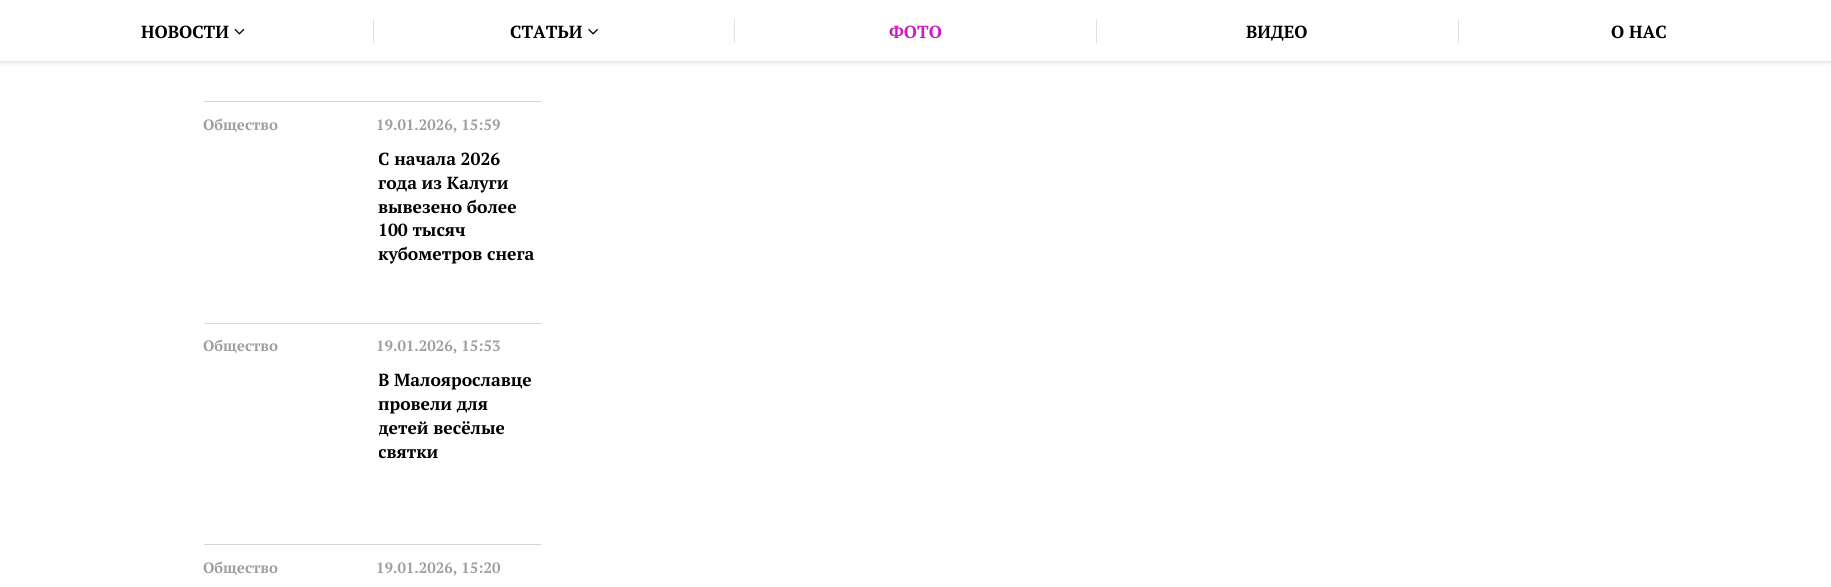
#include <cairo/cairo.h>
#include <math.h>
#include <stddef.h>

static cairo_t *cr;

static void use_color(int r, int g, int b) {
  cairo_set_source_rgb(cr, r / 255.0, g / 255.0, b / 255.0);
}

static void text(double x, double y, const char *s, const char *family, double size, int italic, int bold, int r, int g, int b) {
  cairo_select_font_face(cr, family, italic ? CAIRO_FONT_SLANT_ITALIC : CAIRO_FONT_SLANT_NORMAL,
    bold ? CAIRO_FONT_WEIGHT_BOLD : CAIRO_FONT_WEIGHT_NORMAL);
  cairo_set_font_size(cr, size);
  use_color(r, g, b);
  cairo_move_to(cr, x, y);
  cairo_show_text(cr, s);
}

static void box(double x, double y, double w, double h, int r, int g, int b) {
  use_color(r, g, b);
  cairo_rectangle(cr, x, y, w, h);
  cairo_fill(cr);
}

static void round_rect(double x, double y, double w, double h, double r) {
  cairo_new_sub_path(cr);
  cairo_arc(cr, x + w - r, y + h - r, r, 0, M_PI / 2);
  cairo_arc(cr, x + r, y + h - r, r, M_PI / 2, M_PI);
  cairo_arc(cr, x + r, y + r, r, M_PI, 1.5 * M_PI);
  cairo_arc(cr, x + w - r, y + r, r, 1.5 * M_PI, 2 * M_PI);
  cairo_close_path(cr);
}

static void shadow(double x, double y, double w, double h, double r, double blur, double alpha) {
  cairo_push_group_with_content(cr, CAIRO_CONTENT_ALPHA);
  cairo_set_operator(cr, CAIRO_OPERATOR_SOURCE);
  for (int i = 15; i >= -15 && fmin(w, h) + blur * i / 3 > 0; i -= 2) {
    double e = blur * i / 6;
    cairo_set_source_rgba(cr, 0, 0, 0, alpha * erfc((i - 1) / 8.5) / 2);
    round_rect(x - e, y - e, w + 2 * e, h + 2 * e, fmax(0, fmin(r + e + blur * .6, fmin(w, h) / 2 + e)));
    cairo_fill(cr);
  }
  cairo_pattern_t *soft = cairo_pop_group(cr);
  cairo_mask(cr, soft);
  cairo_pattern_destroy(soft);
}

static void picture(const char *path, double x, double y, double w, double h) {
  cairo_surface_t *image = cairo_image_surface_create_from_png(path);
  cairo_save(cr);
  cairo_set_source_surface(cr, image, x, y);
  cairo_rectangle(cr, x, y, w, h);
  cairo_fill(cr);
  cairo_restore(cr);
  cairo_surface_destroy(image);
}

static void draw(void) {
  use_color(255, 255, 255);
  cairo_paint(cr);
  use_color(128, 128, 128);
  shadow(0, 0, 1831, 61, 0, 3, 0.42);
  box(0, 0, 1831, 61, 255, 255, 255);
  box(373, 19, 1, 24, 225, 225, 225);
  picture("img_01.png", 234, 28, 11, 7);
  box(734, 19, 1, 24, 225, 225, 225);
  picture("img_02.png", 588, 28, 10, 7);
  box(1096, 19, 1, 24, 225, 225, 225);
  box(1458, 19, 1, 24, 225, 225, 225);
  box(204, 101, 337, 1, 214, 214, 214);
  box(204, 323, 337, 1, 214, 214, 214);
  box(204, 544, 337, 1, 214, 214, 214);
  text(141, 38, "НОВОСТИ", "PT Serif", 17.5, 0, 1, 0, 0, 0);
  text(510, 38, "СТАТЬИ", "PT Serif", 17.5, 0, 1, 0, 0, 0);
  text(889, 38, "ФОТО", "PT Serif", 17.5, 0, 1, 203, 27, 195);
  text(1246, 38, "ВИДЕО", "PT Serif", 17.5, 0, 1, 0, 0, 0);
  text(1611, 38, "О НАС", "PT Serif", 17.5, 0, 1, 0, 0, 0);
  text(203, 130, "Общество", "PT Serif", 15, 0, 1, 159, 159, 159);
  text(376, 130, "19.01.2026, 15:59", "PT Serif", 15, 0, 1, 159, 159, 159);
  cairo_save(cr);
  cairo_rectangle(cr, 379, 146, 162, 149);
  cairo_clip(cr);
  text(378, 165, "С начала 2026", "PT Serif", 17.5, 0, 1, 0, 0, 0);
  cairo_restore(cr);
  text(378, 189, "года из Калуги", "PT Serif", 17.5, 0, 1, 0, 0, 0);
  text(378, 213, "вывезено более", "PT Serif", 17.5, 0, 1, 0, 0, 0);
  text(378, 236, "100 тысяч", "PT Serif", 17.5, 0, 1, 0, 0, 0);
  text(378, 260, "кубометров снега", "PT Serif", 17.5, 0, 1, 0, 0, 0);
  text(203, 351, "Общество", "PT Serif", 15, 0, 1, 159, 159, 159);
  text(376, 351, "19.01.2026, 15:53", "PT Serif", 15, 0, 1, 159, 159, 159);
  cairo_save(cr);
  cairo_rectangle(cr, 379, 368, 162, 125);
  cairo_clip(cr);
  text(378, 386, "В Малоярославце", "PT Serif", 17.5, 0, 1, 0, 0, 0);
  cairo_restore(cr);
  text(378, 410, "провели для", "PT Serif", 17.5, 0, 1, 0, 0, 0);
  cairo_save(cr);
  cairo_rectangle(cr, 379, 368, 162, 125);
  cairo_clip(cr);
  text(378, 434, "детей весёлые", "PT Serif", 17.5, 0, 1, 0, 0, 0);
  text(378, 458, "святки", "PT Serif", 17.5, 0, 1, 0, 0, 0);
  cairo_restore(cr);
  text(203, 573, "Общество", "PT Serif", 15, 0, 1, 159, 159, 159);
  text(376, 573, "19.01.2026, 15:20", "PT Serif", 15, 0, 1, 159, 159, 159);
}

int main(void) {
  cairo_surface_t *surface = cairo_image_surface_create(CAIRO_FORMAT_RGB24, 1831, 587);
  cr = cairo_create(surface);
  cairo_font_options_t *options = cairo_font_options_create();
  cairo_font_options_set_hint_metrics(options, CAIRO_HINT_METRICS_OFF);
  cairo_font_options_set_hint_style(options, CAIRO_HINT_STYLE_NONE);
  cairo_set_font_options(cr, options);
  cairo_set_miter_limit(cr, 4);
  draw();
  cairo_surface_write_to_png(surface, "out.png");
  cairo_font_options_destroy(options);
  cairo_destroy(cr);
  cairo_surface_destroy(surface);
  return 0;
}
